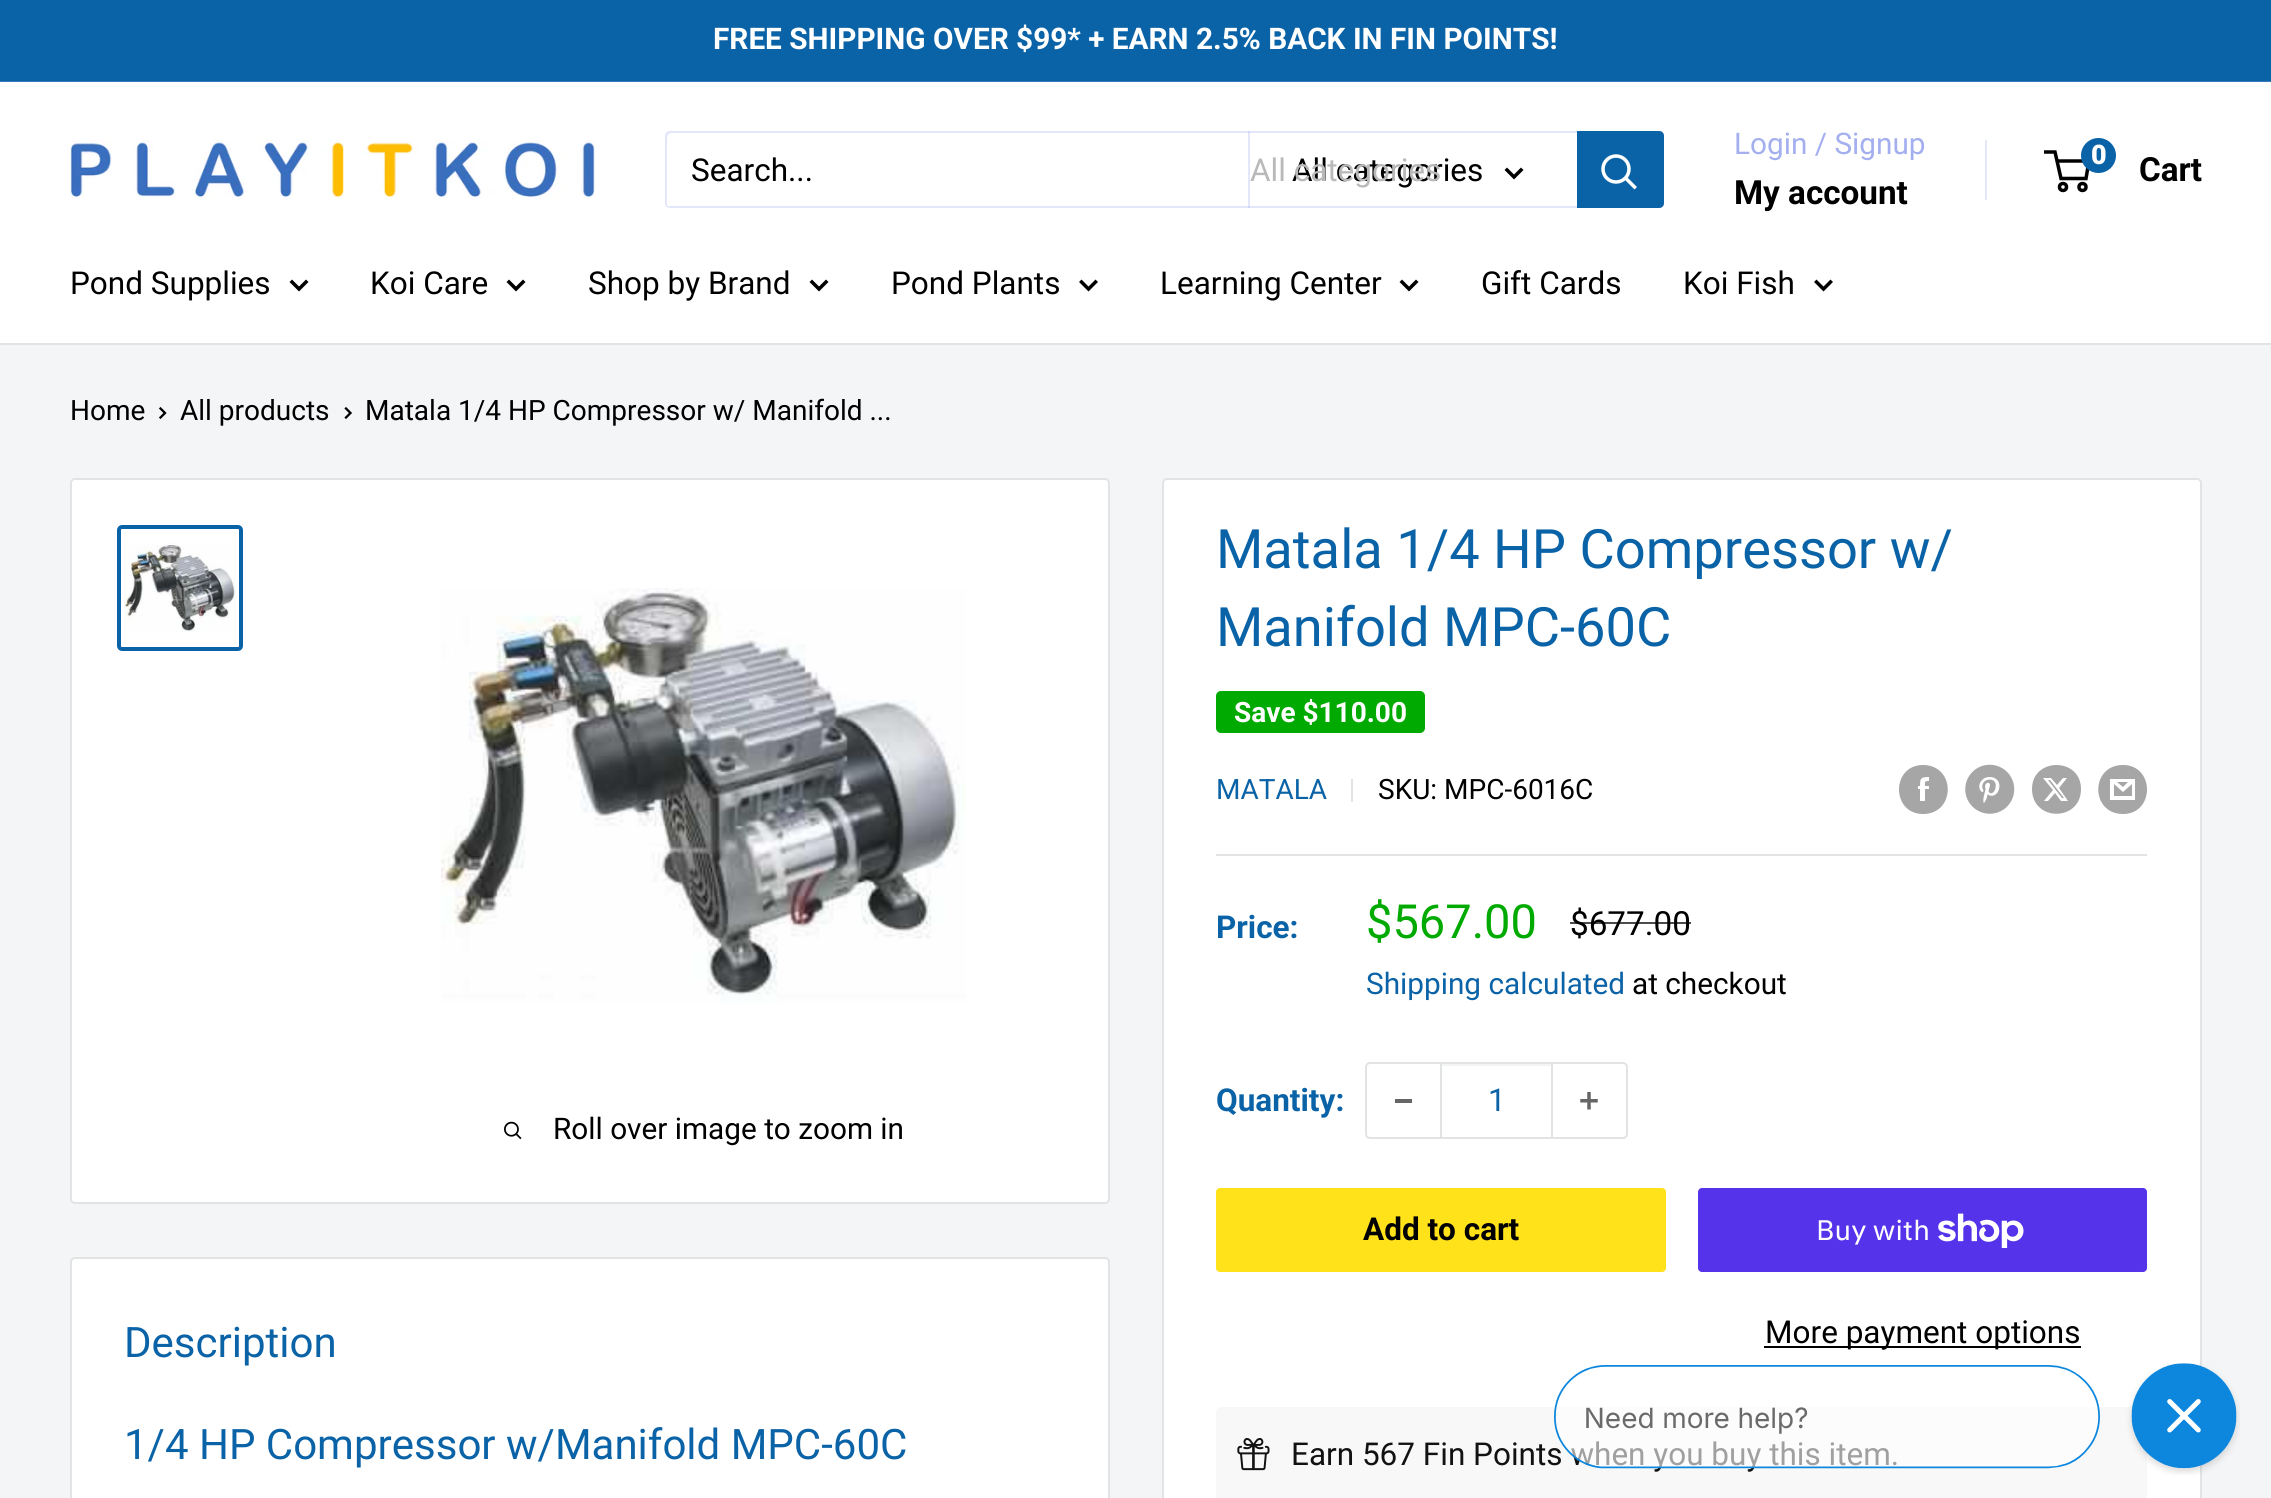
#include <cairo/cairo.h>
#include <math.h>
#include <stddef.h>

static cairo_t *cr;

static void use_color(int r, int g, int b) {
  cairo_set_source_rgb(cr, r / 255.0, g / 255.0, b / 255.0);
}

static void text(double x, double y, const char *s, const char *family, double size, int italic, int bold, int r, int g, int b) {
  cairo_select_font_face(cr, family, italic ? CAIRO_FONT_SLANT_ITALIC : CAIRO_FONT_SLANT_NORMAL,
    bold ? CAIRO_FONT_WEIGHT_BOLD : CAIRO_FONT_WEIGHT_NORMAL);
  cairo_set_font_size(cr, size);
  use_color(r, g, b);
  cairo_move_to(cr, x, y);
  cairo_show_text(cr, s);
}

static void box(double x, double y, double w, double h, int r, int g, int b) {
  use_color(r, g, b);
  cairo_rectangle(cr, x, y, w, h);
  cairo_fill(cr);
}

static void round_rect(double x, double y, double w, double h, double r) {
  cairo_new_sub_path(cr);
  cairo_arc(cr, x + w - r, y + h - r, r, 0, M_PI / 2);
  cairo_arc(cr, x + r, y + h - r, r, M_PI / 2, M_PI);
  cairo_arc(cr, x + r, y + r, r, M_PI, 1.5 * M_PI);
  cairo_arc(cr, x + w - r, y + r, r, 1.5 * M_PI, 2 * M_PI);
  cairo_close_path(cr);
}

static void picture(const char *path, double x, double y, double w, double h) {
  cairo_surface_t *image = cairo_image_surface_create_from_png(path);
  cairo_save(cr);
  cairo_set_source_surface(cr, image, x, y);
  cairo_rectangle(cr, x, y, w, h);
  cairo_fill(cr);
  cairo_restore(cr);
  cairo_surface_destroy(image);
}

static void draw(void) {
  use_color(243, 245, 246);
  cairo_paint(cr);
  box(0, 0, 2271, 81, 11, 99, 167);
  box(0, 81, 2271, 1, 57, 122, 189);
  box(0, 82, 2271, 261, 255, 255, 255);
  picture("img_01.png", 70, 140, 525, 59);
  use_color(227, 231, 250);
  cairo_new_path(cr);
  cairo_move_to(cr, 666, 205);
  cairo_curve_to(cr, 666, 207, 668, 208, 670, 208);
  cairo_line_to(cr, 1659, 208);
  cairo_curve_to(cr, 1662, 208, 1664, 206, 1664, 203);
  cairo_line_to(cr, 1664, 136);
  cairo_curve_to(cr, 1664, 134, 1663, 132, 1660, 131);
  cairo_curve_to(cr, 1661, 132, 1662, 133, 1662, 135);
  cairo_line_to(cr, 1662, 201);
  cairo_curve_to(cr, 1662, 204, 1660, 206, 1657, 206);
  cairo_line_to(cr, 668, 206);
  cairo_close_path(cr);
  cairo_fill(cr);
  cairo_set_source_rgba(cr, 0.639, 0.686, 0.937, 0.3);
  cairo_new_path(cr);
  cairo_move_to(cr, 672, 133);
  cairo_line_to(cr, 1661, 133);
  cairo_line_to(cr, 1663, 133);
  cairo_curve_to(cr, 1662, 132, 1661, 131, 1659, 131);
  cairo_line_to(cr, 670, 131);
  cairo_curve_to(cr, 667, 131, 665, 133, 665, 136);
  cairo_line_to(cr, 665, 203);
  cairo_curve_to(cr, 665, 205, 666, 206, 667, 207);
  cairo_line_to(cr, 667, 205);
  cairo_line_to(cr, 667, 138);
  cairo_curve_to(cr, 667, 135, 669, 133, 672, 133);
  cairo_close_path(cr);
  cairo_fill(cr);
  cairo_rectangle(cr, 1248, 131, 2, 77);
  cairo_fill(cr);
  cairo_new_path(cr);
  cairo_move_to(cr, 1521, 170);
  cairo_line_to(cr, 1514, 177);
  cairo_line_to(cr, 1507, 170);
  use_color(0, 0, 0);
  cairo_set_line_width(cr, 3.5);
  cairo_set_line_cap(cr, CAIRO_LINE_CAP_SQUARE);
  cairo_stroke(cr);
  use_color(11, 99, 167);
  cairo_new_path(cr);
  cairo_move_to(cr, 1577, 131);
  cairo_line_to(cr, 1659, 131);
  cairo_curve_to(cr, 1662, 131, 1664, 133, 1664, 136);
  cairo_line_to(cr, 1664, 203);
  cairo_curve_to(cr, 1664, 206, 1662, 208, 1659, 208);
  cairo_line_to(cr, 1577, 208);
  cairo_close_path(cr);
  cairo_fill(cr);
  cairo_new_path(cr);
  cairo_move_to(cr, 1634.5, 187);
  cairo_line_to(cr, 1626, 178.5);
  use_color(255, 255, 255);
  cairo_stroke(cr);
  cairo_arc(cr, 1616, 169, 13, 0, 2 * M_PI);
  cairo_set_line_cap(cr, CAIRO_LINE_CAP_BUTT);
  cairo_stroke(cr);
  box(1985, 140, 2, 60, 227, 231, 250);
  cairo_arc(cr, 2063, 187, 3.5, 0, 2 * M_PI);
  use_color(0, 0, 0);
  cairo_stroke(cr);
  cairo_arc(cr, 2082.5, 187, 3.5, 0, 2 * M_PI);
  cairo_stroke(cr);
  cairo_new_path(cr);
  cairo_move_to(cr, 2057, 161);
  cairo_line_to(cr, 2089, 161);
  cairo_line_to(cr, 2086, 178.5);
  cairo_line_to(cr, 2061, 178.5);
  cairo_line_to(cr, 2055, 152);
  cairo_line_to(cr, 2044, 152);
  cairo_stroke(cr);
  use_color(11, 99, 167);
  cairo_arc(cr, 2098.5, 155.5, 17.5, 0, 2 * M_PI);
  cairo_fill(cr);
  box(0, 343, 2271, 2, 225, 227, 228);
  cairo_new_path(cr);
  cairo_move_to(cr, 306, 282);
  cairo_line_to(cr, 299, 289);
  cairo_line_to(cr, 292, 282);
  use_color(0, 0, 0);
  cairo_set_line_cap(cr, CAIRO_LINE_CAP_SQUARE);
  cairo_stroke(cr);
  cairo_new_path(cr);
  cairo_move_to(cr, 523, 282);
  cairo_line_to(cr, 516, 289);
  cairo_line_to(cr, 509, 282);
  cairo_stroke(cr);
  cairo_new_path(cr);
  cairo_move_to(cr, 826, 282);
  cairo_line_to(cr, 819, 289);
  cairo_line_to(cr, 812, 282);
  cairo_stroke(cr);
  cairo_new_path(cr);
  cairo_move_to(cr, 1095.5, 282);
  cairo_line_to(cr, 1088.5, 289);
  cairo_line_to(cr, 1081.5, 282);
  cairo_stroke(cr);
  cairo_new_path(cr);
  cairo_move_to(cr, 1416, 282);
  cairo_line_to(cr, 1409, 289);
  cairo_line_to(cr, 1402, 282);
  cairo_stroke(cr);
  cairo_new_path(cr);
  cairo_move_to(cr, 1830.5, 282);
  cairo_line_to(cr, 1823.5, 289);
  cairo_line_to(cr, 1816.5, 282);
  cairo_stroke(cr);
  cairo_new_path(cr);
  cairo_move_to(cr, 160.5, 408.5);
  cairo_line_to(cr, 165, 413);
  cairo_line_to(cr, 160.5, 417.5);
  cairo_set_line_width(cr, 2.3);
  cairo_stroke(cr);
  cairo_new_path(cr);
  cairo_move_to(cr, 346, 408.5);
  cairo_line_to(cr, 350.5, 413);
  cairo_line_to(cr, 346, 417.5);
  cairo_stroke(cr);
  use_color(255, 255, 255);
  round_rect(71, 479, 1038, 724, 4);
  cairo_fill_preserve(cr);
  use_color(225, 227, 228);
  cairo_set_line_width(cr, 2);
  cairo_set_line_cap(cr, CAIRO_LINE_CAP_BUTT);
  cairo_stroke(cr);
  round_rect(119, 527, 122, 122, 3);
  use_color(11, 99, 167);
  cairo_set_line_width(cr, 4);
  cairo_stroke(cr);
  picture("img_02.png", 124, 543, 112, 89);
  picture("img_03.png", 441, 588, 525, 416);
  picture("img_04.png", 504, 1121, 18, 19);
  use_color(255, 255, 255);
  round_rect(1163, 479, 1038, 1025, 4);
  cairo_fill_preserve(cr);
  use_color(225, 227, 228);
  cairo_set_line_width(cr, 2);
  cairo_stroke(cr);
  use_color(0, 170, 0);
  round_rect(1216, 691, 209, 42, 5);
  cairo_fill(cr);
  box(1351, 779, 2, 23, 225, 227, 228);
  use_color(166, 166, 166);
  cairo_set_fill_rule(cr, CAIRO_FILL_RULE_EVEN_ODD);
  cairo_new_path(cr);
  cairo_move_to(cr, 1923, 814);
  cairo_curve_to(cr, 1891, 814, 1891, 765, 1923, 765);
  cairo_curve_to(cr, 1956, 765, 1956, 814, 1923, 814);
  cairo_close_path(cr);
  cairo_move_to(cr, 1929, 786);
  cairo_line_to(cr, 1925, 786);
  cairo_curve_to(cr, 1925, 782, 1924, 781, 1929, 781);
  cairo_line_to(cr, 1929, 777);
  cairo_curve_to(cr, 1921, 777, 1920, 778, 1920, 786);
  cairo_line_to(cr, 1918, 786);
  cairo_line_to(cr, 1918, 789);
  cairo_line_to(cr, 1920, 789);
  cairo_line_to(cr, 1920, 801);
  cairo_line_to(cr, 1925, 801);
  cairo_line_to(cr, 1925, 789);
  cairo_line_to(cr, 1929, 789);
  cairo_close_path(cr);
  cairo_fill(cr);
  picture("img_05.png", 1965, 764, 50, 50);
  cairo_new_path(cr);
  cairo_move_to(cr, 2081, 789);
  cairo_curve_to(cr, 2081, 822, 2032, 822, 2032, 789);
  cairo_curve_to(cr, 2032, 757, 2081, 757, 2081, 789);
  cairo_close_path(cr);
  cairo_move_to(cr, 2067, 778);
  cairo_line_to(cr, 2063, 778);
  cairo_line_to(cr, 2057, 785);
  cairo_line_to(cr, 2051, 778);
  cairo_line_to(cr, 2043, 778);
  cairo_line_to(cr, 2053, 790);
  cairo_line_to(cr, 2044, 801);
  cairo_line_to(cr, 2048, 801);
  cairo_line_to(cr, 2055, 793);
  cairo_line_to(cr, 2061, 801);
  cairo_line_to(cr, 2068, 801);
  cairo_line_to(cr, 2059, 788);
  cairo_close_path(cr);
  cairo_move_to(cr, 2064, 798);
  cairo_line_to(cr, 2062, 798);
  cairo_line_to(cr, 2048, 780);
  cairo_line_to(cr, 2050, 780);
  cairo_close_path(cr);
  cairo_fill(cr);
  cairo_set_fill_rule(cr, CAIRO_FILL_RULE_WINDING);
  cairo_new_path(cr);
  cairo_move_to(cr, 2123, 814);
  cairo_curve_to(cr, 2090, 814, 2090, 765, 2123, 765);
  cairo_curve_to(cr, 2155, 765, 2155, 814, 2123, 814);
  cairo_close_path(cr);
  cairo_move_to(cr, 2117, 782);
  cairo_line_to(cr, 2128, 782);
  cairo_line_to(cr, 2123, 787);
  cairo_close_path(cr);
  cairo_move_to(cr, 2132, 784);
  cairo_line_to(cr, 2132, 796);
  cairo_line_to(cr, 2114, 796);
  cairo_line_to(cr, 2114, 784);
  cairo_line_to(cr, 2123, 792);
  cairo_close_path(cr);
  cairo_move_to(cr, 2135, 779);
  cairo_line_to(cr, 2110, 779);
  cairo_line_to(cr, 2110, 800);
  cairo_line_to(cr, 2135, 800);
  cairo_close_path(cr);
  cairo_fill(cr);
  box(1216, 854, 931, 2, 225, 227, 228);
  round_rect(1366, 1063, 261, 75, 4);
  cairo_stroke(cr);
  box(1395, 1099, 17, 4, 102, 102, 102);
  box(1442, 1064, 109, 2, 243, 244, 244);
  box(1551, 1064, 2, 74, 225, 227, 228);
  box(1440, 1064, 2, 74, 225, 227, 228);
  picture("img_06.png", 1580, 1092, 18, 18);
  use_color(255, 226, 25);
  round_rect(1216, 1188, 450, 84, 4);
  cairo_fill(cr);
  use_color(84, 51, 235);
  round_rect(1698, 1188, 449, 84, 4);
  cairo_fill(cr);
  picture("img_07.png", 1938, 1213, 86, 35);
  box(1764, 1346, 317, 2, 0, 0, 0);
  use_color(248, 248, 248);
  round_rect(1216, 1407, 931, 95, 5);
  cairo_fill(cr);
  picture("img_08.png", 1237, 1438, 33, 33);
  use_color(255, 255, 255);
  round_rect(71, 1258, 1038, 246, 4);
  cairo_fill_preserve(cr);
  use_color(225, 227, 228);
  cairo_stroke(cr);
  text(713, 49, "FREE SHIPPING OVER $99* + EARN 2.5% BACK IN FIN POINTS!", "Roboto", 29.75, 0, 1, 255, 255, 255);
  text(691, 181, "Search...", "Roboto", 31.5, 0, 0, 0, 0, 0);
  text(1292, 181, "All categories", "Roboto", 31.5, 0, 0, 0, 0, 0);
  text(1250, 181, "All categories", "Roboto", 31.5, 0, 0, 185, 185, 185);
  text(1734, 154, "Login / Signup", "Roboto", 29.75, 0, 0, 163, 175, 239);
  text(1734, 204, "My account", "Roboto", 33.25, 0, 1, 0, 0, 0);
  text(2091, 164, "0", "Roboto Black", 27, 0, 0, 255, 255, 255);
  text(2139, 181, "Cart", "Roboto", 33.25, 0, 1, 0, 0, 0);
  text(70, 294, "Pond Supplies", "Roboto", 31.5, 0, 0, 0, 0, 0);
  text(370, 294, "Koi Care", "Roboto", 31.5, 0, 0, 0, 0, 0);
  text(588, 294, "Shop by Brand", "Roboto", 31.5, 0, 0, 0, 0, 0);
  text(891, 294, "Pond Plants", "Roboto", 31.5, 0, 0, 0, 0, 0);
  text(1160, 294, "Learning Center", "Roboto", 31.5, 0, 0, 0, 0, 0);
  text(1481, 294, "Gift Cards", "Roboto", 31.5, 0, 0, 0, 0, 0);
  text(1683, 294, "Koi Fish", "Roboto", 31.5, 0, 0, 0, 0, 0);
  text(70, 420, "Home", "Roboto", 28, 0, 0, 0, 0, 0);
  text(180, 420, "All products", "Roboto", 28, 0, 0, 0, 0, 0);
  text(365, 420, "Matala 1/4 HP Compressor w/ Manifold ...", "Roboto", 28, 0, 0, 0, 0, 0);
  text(553, 1139, "Roll over image to zoom in", "Roboto", 29.75, 0, 0, 0, 0, 0);
  text(1216, 568, "Matala 1/4 HP Compressor w/", "Roboto", 54.25, 0, 0, 11, 99, 167);
  text(1216, 646, "Manifold MPC-60C", "Roboto", 54.25, 0, 0, 11, 99, 167);
  text(1234, 722, "Save $110.00", "Roboto", 28, 0, 1, 255, 255, 255);
  text(1216, 799, "MATALA", "Roboto", 28, 0, 0, 11, 99, 167);
  text(1378, 799, "SKU: MPC-6016C", "Roboto", 28, 0, 0, 0, 0, 0);
  text(1216, 938, "Price:", "Roboto", 31.5, 0, 1, 11, 99, 167);
  text(1366, 938, "$567.00", "Roboto", 47, 0, 0, 0, 170, 0);
  text(1570, 935, "$677.00", "Roboto", 33.25, 0, 0, 0, 0, 0);
  cairo_set_source_rgba(cr, 0, 0, 0, 0.7);
  cairo_rectangle(cr, 1570, 922, 121, 2);
  cairo_fill(cr);
  text(1366, 994, "Shipping calculated", "Roboto", 29.75, 0, 0, 11, 99, 167);
  text(1632, 994, "at checkout", "Roboto", 29.75, 0, 0, 0, 0, 0);
  text(1216, 1111, "Quantity:", "Roboto", 31.5, 0, 1, 11, 99, 167);
  text(1488, 1111, "1", "Roboto", 31.5, 0, 0, 11, 99, 167);
  text(1363, 1240, "Add to cart", "Roboto", 31.5, 0, 1, 0, 0, 0);
  text(1816, 1240, "Buy with", "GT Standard", 28, 0, 0, 255, 255, 255);
  text(1765, 1343, "More payment options", "Roboto", 31.5, 0, 0, 0, 0, 0);
  text(1291, 1465, "Earn 567 Fin Points when you buy this item.", "Roboto", 31.5, 0, 0, 18, 18, 18);
  text(124, 1357, "Description", "Roboto", 42, 0, 0, 11, 99, 167);
  text(124, 1459, "1/4 HP Compressor w/Manifold MPC-60C", "Roboto", 42, 0, 0, 11, 99, 167);
  picture("img_09.png", 1554, 1363, 686, 112);
}

int main(void) {
  cairo_surface_t *surface = cairo_image_surface_create(CAIRO_FORMAT_RGB24, 2271, 1498);
  cr = cairo_create(surface);
  cairo_font_options_t *options = cairo_font_options_create();
  cairo_font_options_set_hint_metrics(options, CAIRO_HINT_METRICS_OFF);
  cairo_font_options_set_hint_style(options, CAIRO_HINT_STYLE_NONE);
  cairo_set_font_options(cr, options);
  cairo_set_miter_limit(cr, 4);
  draw();
  cairo_surface_write_to_png(surface, "out.png");
  cairo_font_options_destroy(options);
  cairo_destroy(cr);
  cairo_surface_destroy(surface);
  return 0;
}
